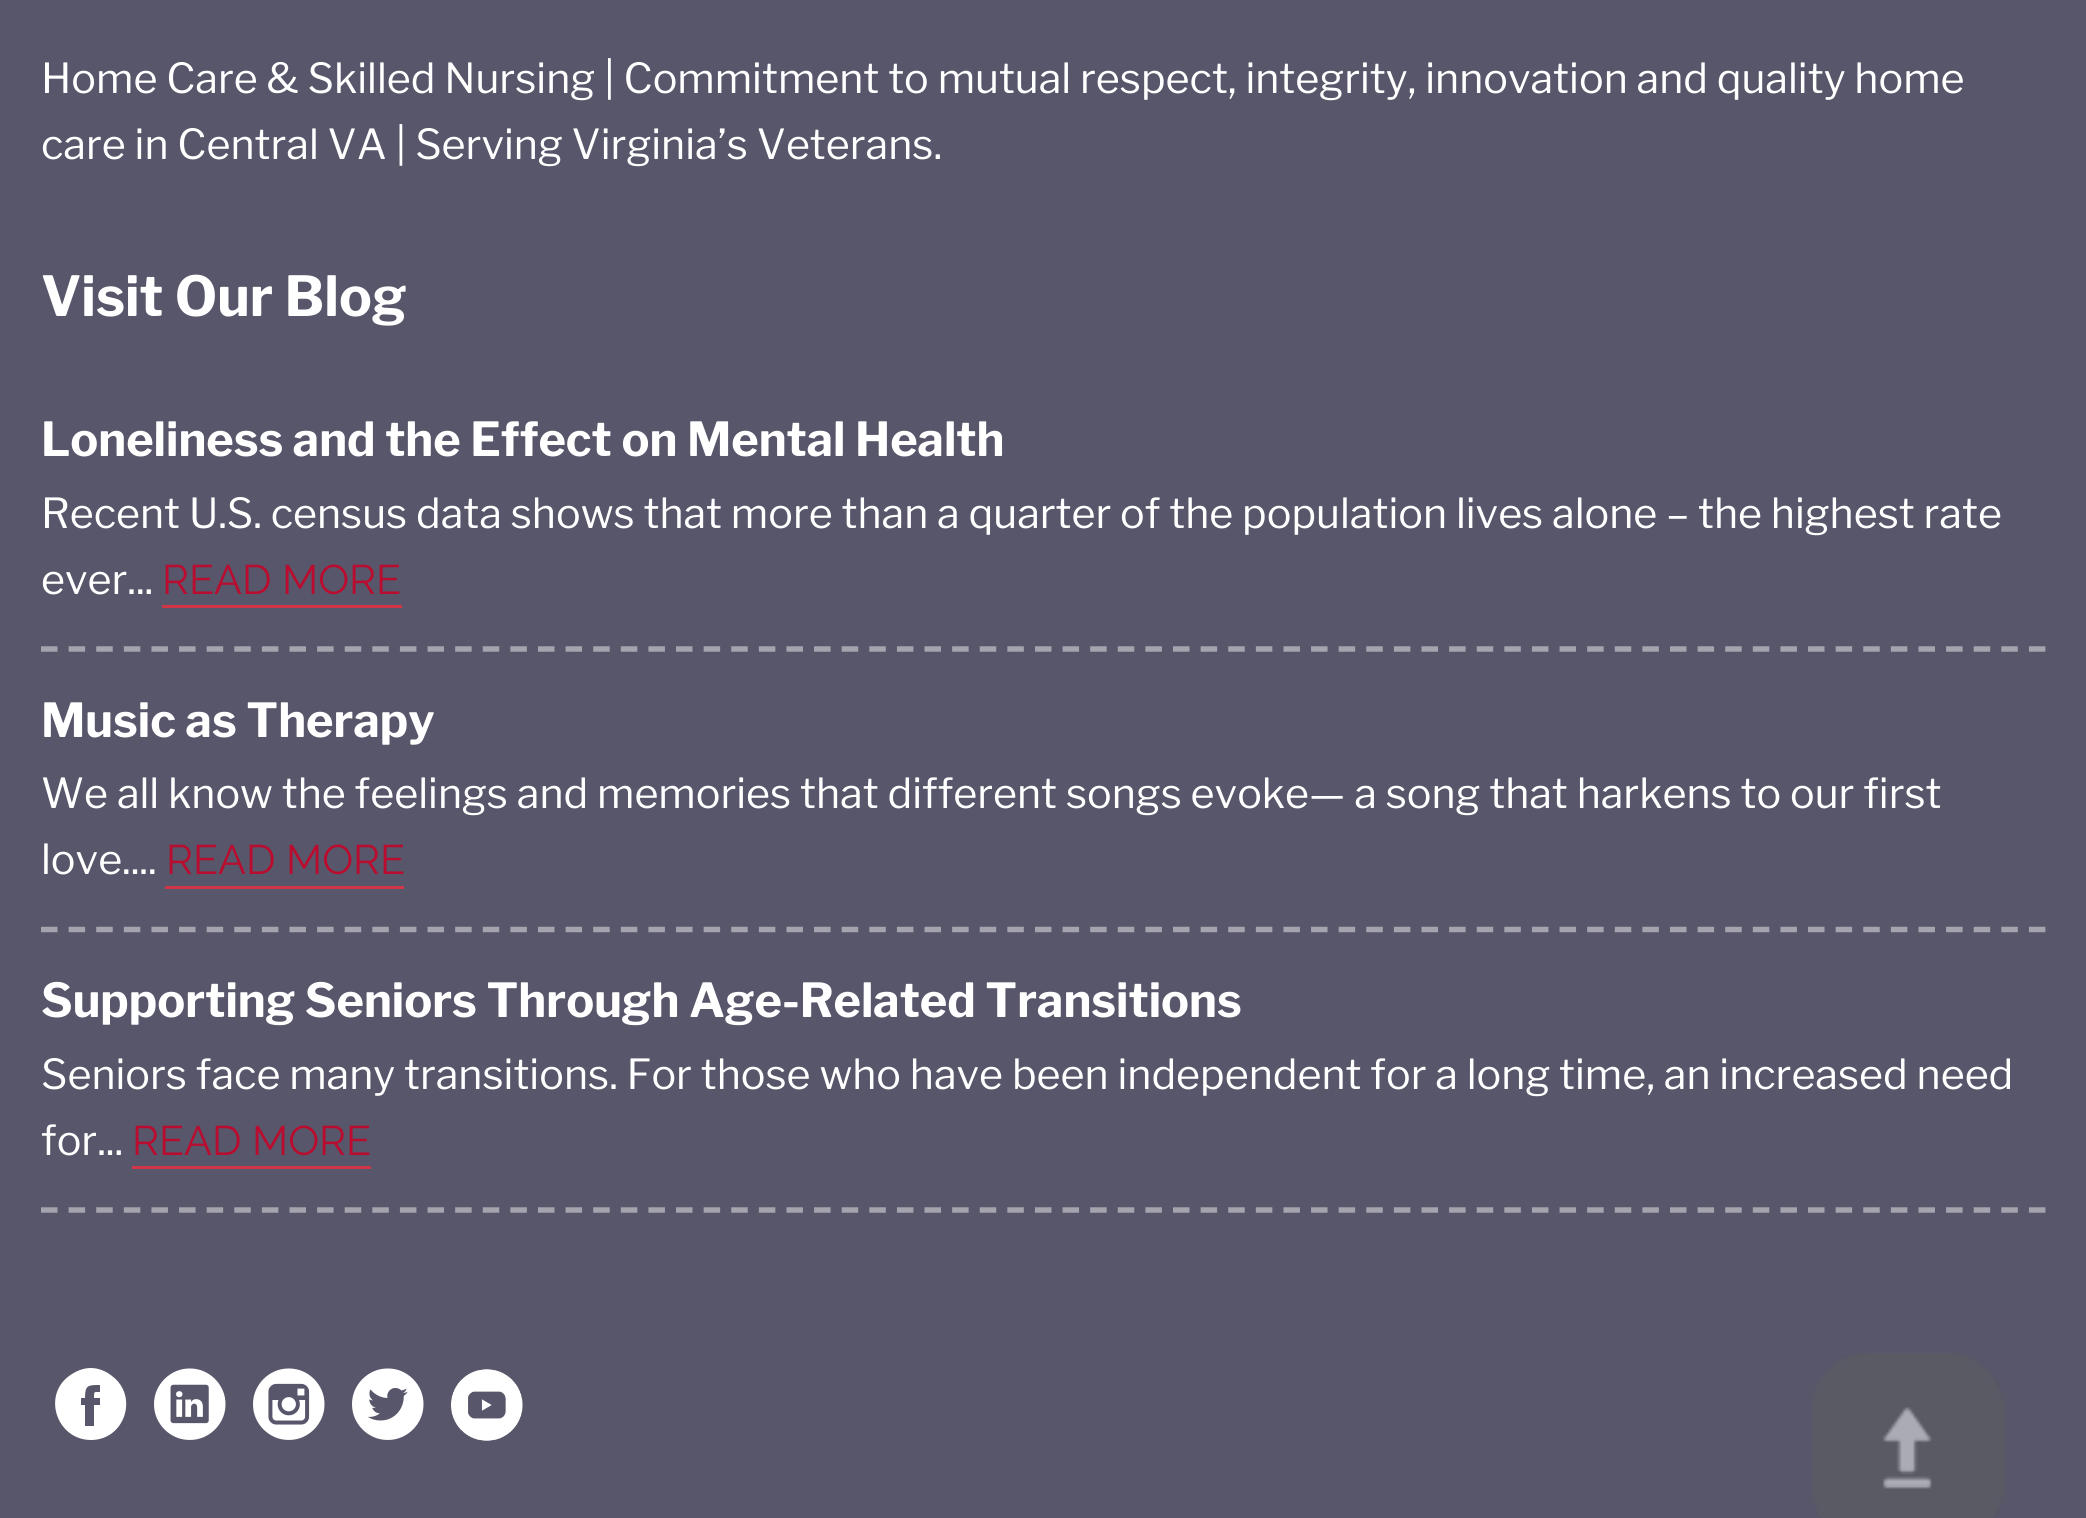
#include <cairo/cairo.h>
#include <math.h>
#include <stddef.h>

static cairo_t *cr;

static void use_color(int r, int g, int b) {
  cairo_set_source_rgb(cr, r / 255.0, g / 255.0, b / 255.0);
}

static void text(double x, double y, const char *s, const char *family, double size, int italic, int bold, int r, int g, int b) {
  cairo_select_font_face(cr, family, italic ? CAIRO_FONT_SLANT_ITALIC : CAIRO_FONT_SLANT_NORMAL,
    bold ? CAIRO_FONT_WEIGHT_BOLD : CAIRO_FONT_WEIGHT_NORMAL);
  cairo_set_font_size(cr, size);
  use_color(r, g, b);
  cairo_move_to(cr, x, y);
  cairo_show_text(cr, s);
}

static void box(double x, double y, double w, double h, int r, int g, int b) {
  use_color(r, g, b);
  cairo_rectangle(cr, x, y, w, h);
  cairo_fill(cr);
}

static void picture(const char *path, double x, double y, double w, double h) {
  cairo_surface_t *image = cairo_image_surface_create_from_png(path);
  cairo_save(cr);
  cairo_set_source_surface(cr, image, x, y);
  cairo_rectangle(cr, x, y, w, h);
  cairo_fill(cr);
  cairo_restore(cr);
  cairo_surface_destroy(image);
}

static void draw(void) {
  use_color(87, 86, 106);
  cairo_paint(cr);
  cairo_new_path(cr);
  cairo_move_to(cr, 41, 649);
  cairo_line_to(cr, 2046, 649);
  use_color(164, 163, 174);
  cairo_set_line_width(cr, 5.5);
  cairo_set_dash(cr, (double[]){16.5, 11.11}, 2, 0);
  cairo_stroke(cr);
  box(162, 605, 240, 3, 208, 54, 71);
  cairo_new_path(cr);
  cairo_move_to(cr, 41, 929.5);
  cairo_line_to(cr, 2046, 929.5);
  use_color(164, 163, 174);
  cairo_stroke(cr);
  box(165, 886, 239, 3, 208, 54, 71);
  cairo_new_path(cr);
  cairo_move_to(cr, 41, 1210);
  cairo_line_to(cr, 2046, 1210);
  use_color(164, 163, 174);
  cairo_stroke(cr);
  box(132, 1166, 239, 3, 208, 54, 71);
  use_color(255, 255, 255);
  cairo_new_path(cr);
  cairo_move_to(cr, 91, 1368);
  cairo_curve_to(cr, 83, 1368, 76, 1371, 69, 1376);
  cairo_curve_to(cr, 42, 1396, 57, 1440, 91, 1440);
  cairo_curve_to(cr, 125, 1440, 139, 1396, 112, 1376);
  cairo_curve_to(cr, 106, 1371, 98, 1368, 91, 1368);
  cairo_close_path(cr);
  cairo_move_to(cr, 100, 1405);
  cairo_line_to(cr, 94, 1405);
  cairo_line_to(cr, 94, 1426);
  cairo_line_to(cr, 85, 1426);
  cairo_line_to(cr, 85, 1405);
  cairo_line_to(cr, 81, 1405);
  cairo_line_to(cr, 81, 1398);
  cairo_line_to(cr, 85, 1398);
  cairo_curve_to(cr, 85, 1385, 88, 1385, 100, 1385);
  cairo_line_to(cr, 100, 1392);
  cairo_curve_to(cr, 94, 1392, 94, 1391, 94, 1398);
  cairo_line_to(cr, 100, 1398);
  cairo_close_path(cr);
  cairo_fill(cr);
  picture("img_01.png", 154, 1368, 72, 72);
  picture("img_02.png", 253, 1368, 72, 72);
  picture("img_03.png", 352, 1368, 72, 72);
  picture("img_04.png", 451, 1369, 72, 72);
  picture("img_05.png", 1812, 1353, 193, 165);
  text(41, 93, "Home Care & Skilled Nursing | Commitment to mutual respect, integrity, innovation and quality home", "Libre Franklin", 41.25, 0, 0, 255, 255, 255);
  text(41, 159, "care in Central VA | Serving Virginia’s Veterans.", "Libre Franklin", 41.25, 0, 0, 255, 255, 255);
  text(41, 316, "Visit Our Blog", "Libre Franklin", 55, 0, 1, 255, 255, 255);
  text(41, 456, "Loneliness and the Effect on Mental Health", "Libre Franklin", 46.75, 0, 1, 255, 255, 255);
  text(41, 528, "Recent U.S. census data shows that more than a quarter of the population lives alone – the highest rate", "Libre Franklin", 41.25, 0, 0, 255, 255, 255);
  text(41, 594, "ever...", "Libre Franklin", 41.25, 0, 0, 255, 255, 255);
  text(162, 594, "READ MORE", "Raleway", 41.25, 0, 0, 186, 12, 47);
  text(41, 737, "Music as Therapy", "Libre Franklin", 46.75, 0, 1, 255, 255, 255);
  text(41, 808, "We all know the feelings and memories that different songs evoke— a song that harkens to our first", "Libre Franklin", 41.25, 0, 0, 255, 255, 255);
  text(41, 874, "love....", "Libre Franklin", 41.25, 0, 0, 255, 255, 255);
  text(166, 874, "READ MORE", "Raleway", 41.25, 0, 0, 186, 12, 47);
  text(41, 1017, "Supporting Seniors Through Age-Related Transitions", "Libre Franklin", 46.75, 0, 1, 255, 255, 255);
  text(41, 1089, "Seniors face many transitions. For those who have been independent for a long time, an increased need", "Libre Franklin", 41.25, 0, 0, 255, 255, 255);
  text(41, 1155, "for...", "Libre Franklin", 41.25, 0, 0, 255, 255, 255);
  text(132, 1155, "READ MORE", "Raleway", 41.25, 0, 0, 186, 12, 47);
}

int main(void) {
  cairo_surface_t *surface = cairo_image_surface_create(CAIRO_FORMAT_RGB24, 2086, 1518);
  cr = cairo_create(surface);
  cairo_font_options_t *options = cairo_font_options_create();
  cairo_font_options_set_hint_metrics(options, CAIRO_HINT_METRICS_OFF);
  cairo_font_options_set_hint_style(options, CAIRO_HINT_STYLE_NONE);
  cairo_set_font_options(cr, options);
  cairo_set_miter_limit(cr, 4);
  draw();
  cairo_surface_write_to_png(surface, "out.png");
  cairo_font_options_destroy(options);
  cairo_destroy(cr);
  cairo_surface_destroy(surface);
  return 0;
}
